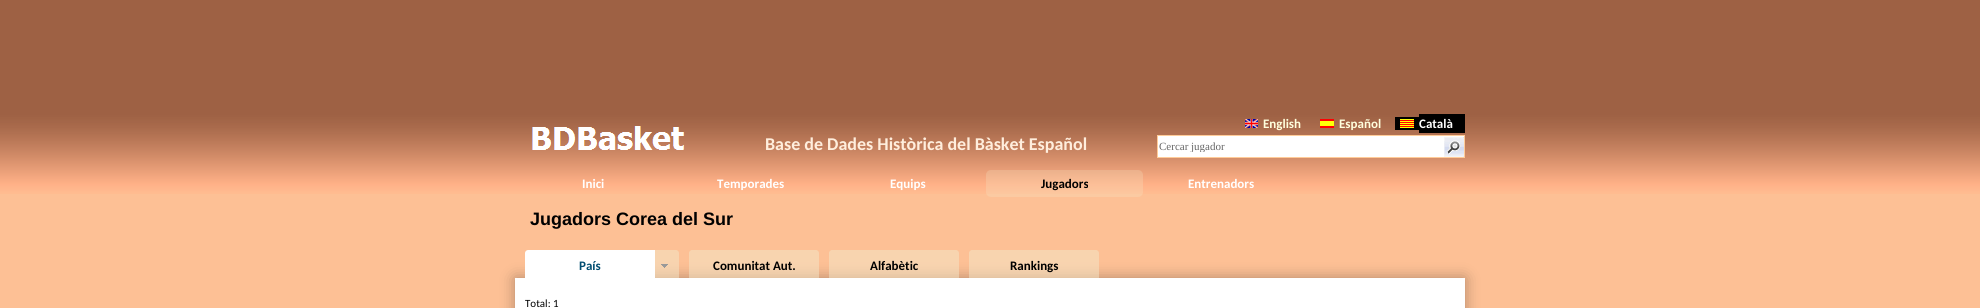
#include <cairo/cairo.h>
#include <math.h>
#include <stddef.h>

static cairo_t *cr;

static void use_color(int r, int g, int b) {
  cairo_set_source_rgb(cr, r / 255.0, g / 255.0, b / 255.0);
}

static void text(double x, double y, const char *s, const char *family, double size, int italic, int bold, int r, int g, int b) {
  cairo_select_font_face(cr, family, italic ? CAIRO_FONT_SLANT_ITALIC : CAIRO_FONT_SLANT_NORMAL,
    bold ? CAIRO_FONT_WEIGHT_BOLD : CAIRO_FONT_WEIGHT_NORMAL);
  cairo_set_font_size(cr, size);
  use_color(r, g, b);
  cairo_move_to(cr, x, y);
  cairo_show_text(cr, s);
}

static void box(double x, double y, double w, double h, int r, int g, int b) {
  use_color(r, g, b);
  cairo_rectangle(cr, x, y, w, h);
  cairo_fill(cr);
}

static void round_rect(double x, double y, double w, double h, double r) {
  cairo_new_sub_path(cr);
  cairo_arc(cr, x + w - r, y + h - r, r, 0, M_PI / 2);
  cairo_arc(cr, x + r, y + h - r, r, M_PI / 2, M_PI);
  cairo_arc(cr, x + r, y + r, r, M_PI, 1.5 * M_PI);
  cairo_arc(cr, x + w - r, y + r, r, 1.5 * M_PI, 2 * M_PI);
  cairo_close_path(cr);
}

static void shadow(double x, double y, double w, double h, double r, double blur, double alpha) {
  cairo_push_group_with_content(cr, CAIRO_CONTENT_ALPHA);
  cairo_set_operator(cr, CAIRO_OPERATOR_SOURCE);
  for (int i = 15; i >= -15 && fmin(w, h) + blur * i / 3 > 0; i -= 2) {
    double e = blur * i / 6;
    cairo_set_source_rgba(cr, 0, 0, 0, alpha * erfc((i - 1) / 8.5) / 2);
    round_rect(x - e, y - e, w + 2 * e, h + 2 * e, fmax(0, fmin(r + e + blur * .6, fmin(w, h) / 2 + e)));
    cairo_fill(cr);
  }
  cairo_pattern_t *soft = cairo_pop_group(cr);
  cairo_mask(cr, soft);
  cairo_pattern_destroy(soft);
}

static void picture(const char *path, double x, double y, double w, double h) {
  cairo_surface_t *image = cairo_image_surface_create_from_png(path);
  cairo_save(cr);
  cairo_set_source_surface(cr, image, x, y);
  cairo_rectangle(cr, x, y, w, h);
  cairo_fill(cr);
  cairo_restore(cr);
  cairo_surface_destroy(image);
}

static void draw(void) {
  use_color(253, 192, 149);
  cairo_paint(cr);
  box(0, 0, 1980, 110, 158, 97, 68);
  picture("img_01.png", 0, 110, 1980, 84);
  picture("img_02.png", 532, 126, 153, 24);
  picture("img_03.png", 1245, 119, 13, 9);
  picture("img_04.png", 1320, 119, 14, 9);
  box(1395, 117, 24, 13, 0, 0, 0);
  picture("img_05.png", 1400, 119, 14, 9);
  box(1419, 114, 46, 19, 0, 0, 0);
  use_color(255, 255, 255);
  cairo_rectangle(cr, 1157.5, 135.5, 307, 22);
  cairo_fill_preserve(cr);
  use_color(255, 204, 153);
  cairo_set_line_width(cr, 1);
  cairo_stroke(cr);
  picture("img_06.png", 1444, 137, 20, 20);
  cairo_set_source_rgba(cr, 0.957, 0.91, 0.792, 0.25);
  round_rect(986, 170, 157, 27, 5);
  cairo_fill(cr);
  use_color(0, 0, 0);
  shadow(515, 278, 950, 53, 0, 7.5, 0.3);
  use_color(255, 255, 255);
  cairo_new_path(cr);
  cairo_move_to(cr, 528, 250);
  cairo_line_to(cr, 655, 250);
  cairo_line_to(cr, 655, 278);
  cairo_line_to(cr, 525, 278);
  cairo_line_to(cr, 525, 253);
  cairo_curve_to(cr, 525, 251.5, 526.5, 250, 528, 250);
  cairo_close_path(cr);
  cairo_fill(cr);
  cairo_set_source_rgba(cr, 0.957, 0.91, 0.792, 0.5);
  cairo_new_path(cr);
  cairo_move_to(cr, 655, 250);
  cairo_line_to(cr, 676, 250);
  cairo_curve_to(cr, 677.5, 250, 679, 251.5, 679, 253);
  cairo_line_to(cr, 679, 278);
  cairo_line_to(cr, 655, 278);
  cairo_close_path(cr);
  cairo_fill(cr);
  picture("img_07.png", 661, 264, 7, 4);
  cairo_new_path(cr);
  cairo_move_to(cr, 692, 250);
  cairo_line_to(cr, 816, 250);
  cairo_curve_to(cr, 817.5, 250, 819, 251.5, 819, 253);
  cairo_line_to(cr, 819, 278);
  cairo_line_to(cr, 689, 278);
  cairo_line_to(cr, 689, 253);
  cairo_curve_to(cr, 689, 251.5, 690.5, 250, 692, 250);
  cairo_close_path(cr);
  cairo_fill(cr);
  cairo_new_path(cr);
  cairo_move_to(cr, 832, 250);
  cairo_line_to(cr, 956, 250);
  cairo_curve_to(cr, 957.5, 250, 959, 251.5, 959, 253);
  cairo_line_to(cr, 959, 278);
  cairo_line_to(cr, 829, 278);
  cairo_line_to(cr, 829, 253);
  cairo_curve_to(cr, 829, 251.5, 830.5, 250, 832, 250);
  cairo_close_path(cr);
  cairo_fill(cr);
  cairo_new_path(cr);
  cairo_move_to(cr, 972, 250);
  cairo_line_to(cr, 1096, 250);
  cairo_curve_to(cr, 1097.5, 250, 1099, 251.5, 1099, 253);
  cairo_line_to(cr, 1099, 278);
  cairo_line_to(cr, 969, 278);
  cairo_line_to(cr, 969, 253);
  cairo_curve_to(cr, 969, 251.5, 970.5, 250, 972, 250);
  cairo_close_path(cr);
  cairo_fill(cr);
  box(515, 278, 950, 30, 255, 255, 255);
  text(765, 150, "Base de Dades Històrica del Bàsket Español", "Carlito", 18, 0, 1, 255, 238, 221);
  text(1263, 128, "English", "Carlito", 13, 0, 1, 255, 255, 221);
  text(1339, 128, "Español", "Carlito", 13, 0, 1, 255, 255, 221);
  text(1419, 128, "Català", "Carlito", 13, 0, 1, 255, 255, 255);
  cairo_save(cr);
  cairo_rectangle(cr, 1159, 140, 275, 12);
  cairo_clip(cr);
  text(1159, 150, "Cercar jugador", "Liberation Serif", 11, 0, 0, 102, 102, 102);
  cairo_restore(cr);
  text(582, 188, "Inici", "Carlito", 13, 0, 1, 255, 255, 255);
  text(717, 188, "Temporades", "Carlito", 13, 0, 1, 255, 255, 255);
  text(890, 188, "Equips", "Carlito", 13, 0, 1, 255, 255, 255);
  text(1041, 188, "Jugadors", "Carlito", 13, 0, 1, 0, 0, 0);
  text(1188, 188, "Entrenadors", "Carlito", 13, 0, 1, 255, 255, 255);
  text(530, 225, "Jugadors Corea del Sur", "Liberation Sans", 18, 0, 1, 0, 0, 0);
  text(579, 270, "País", "Carlito", 13, 0, 1, 1, 77, 113);
  text(713, 270, "Comunitat Aut.", "Carlito", 13, 0, 1, 0, 0, 0);
  text(870, 270, "Alfabètic", "Carlito", 13, 0, 1, 0, 0, 0);
  text(1010, 270, "Rankings", "Carlito", 13, 0, 1, 0, 0, 0);
  text(525, 307, "Total: 1", "Carlito", 11, 0, 0, 0, 0, 0);
}

int main(void) {
  cairo_surface_t *surface = cairo_image_surface_create(CAIRO_FORMAT_RGB24, 1980, 308);
  cr = cairo_create(surface);
  cairo_font_options_t *options = cairo_font_options_create();
  cairo_font_options_set_hint_metrics(options, CAIRO_HINT_METRICS_OFF);
  cairo_font_options_set_hint_style(options, CAIRO_HINT_STYLE_NONE);
  cairo_set_font_options(cr, options);
  cairo_set_miter_limit(cr, 4);
  draw();
  cairo_surface_write_to_png(surface, "out.png");
  cairo_font_options_destroy(options);
  cairo_destroy(cr);
  cairo_surface_destroy(surface);
  return 0;
}
